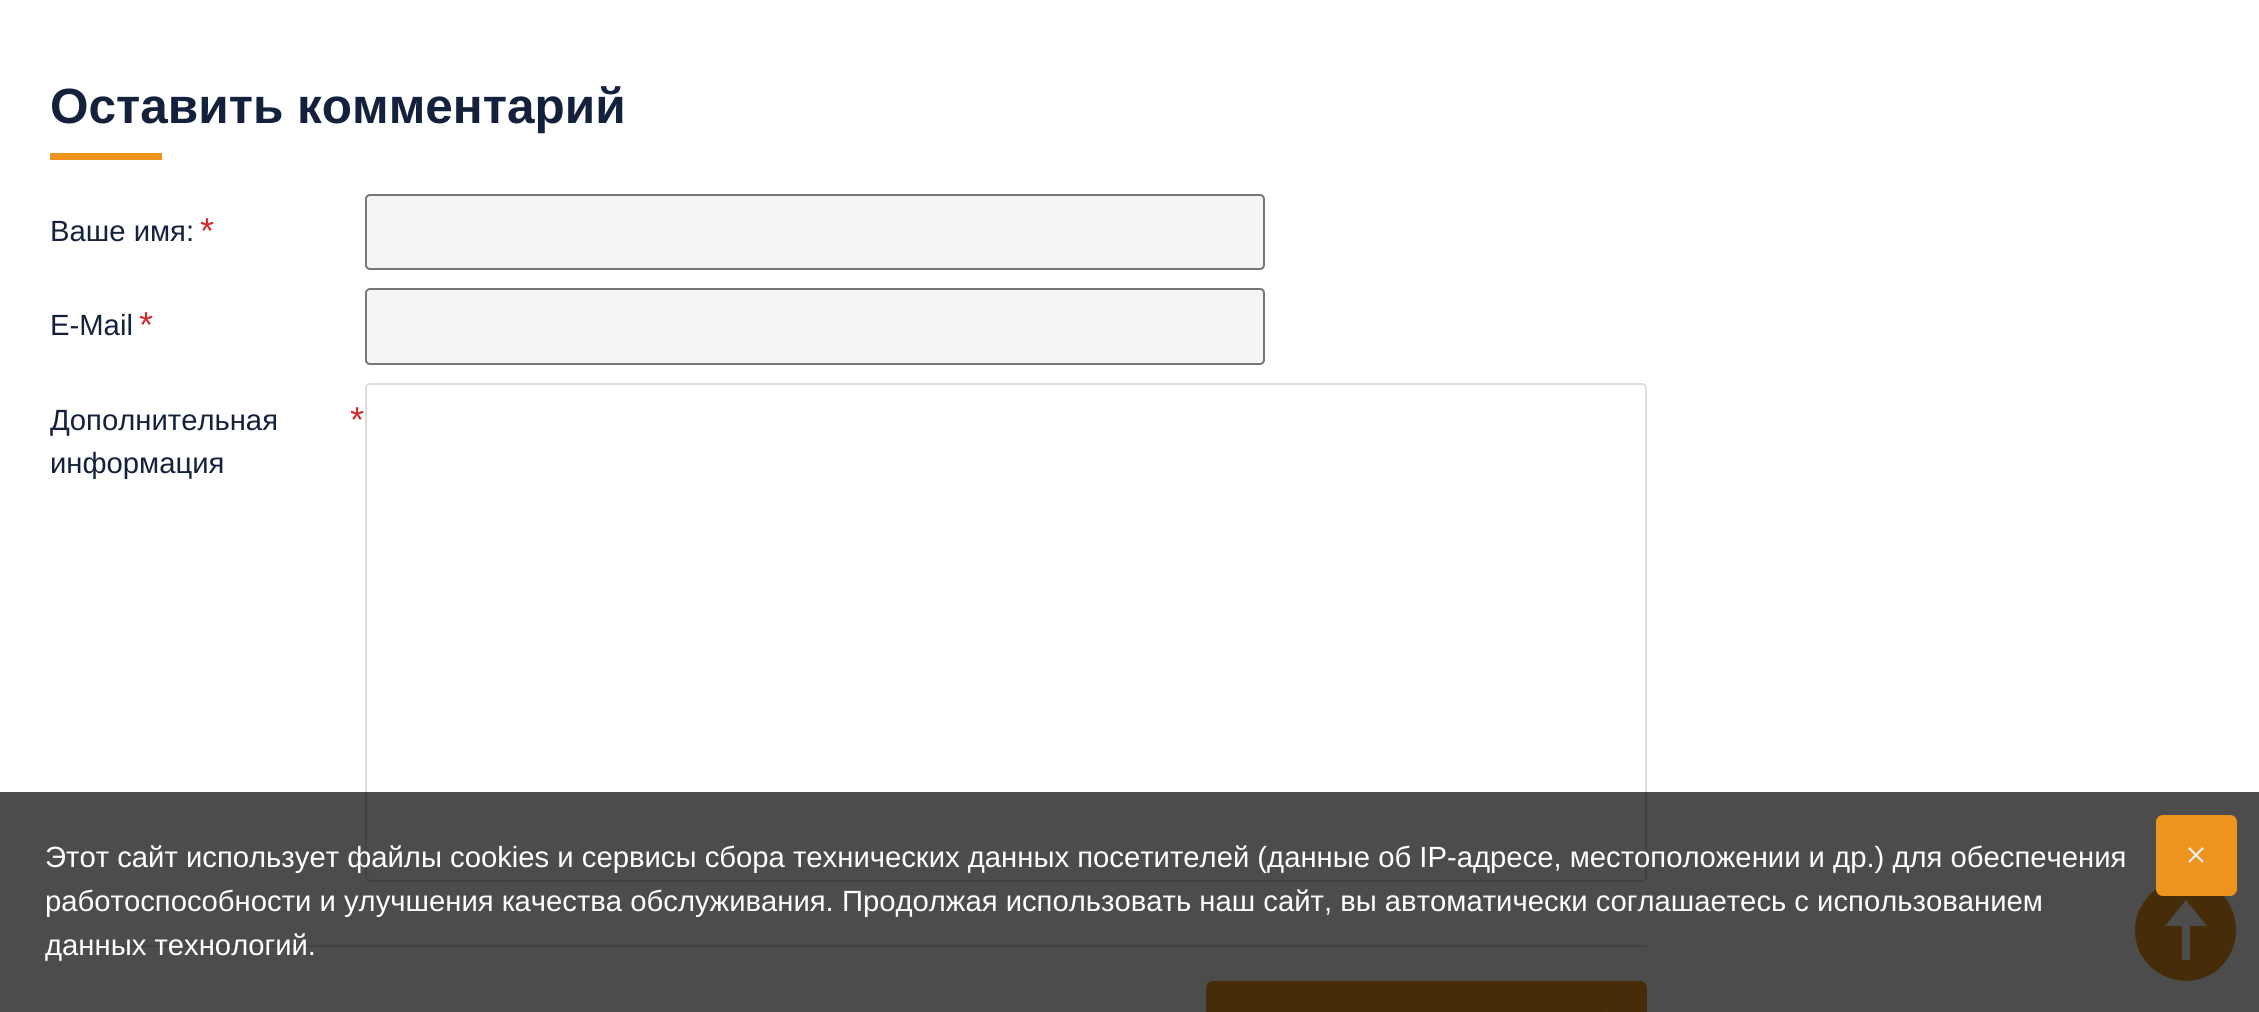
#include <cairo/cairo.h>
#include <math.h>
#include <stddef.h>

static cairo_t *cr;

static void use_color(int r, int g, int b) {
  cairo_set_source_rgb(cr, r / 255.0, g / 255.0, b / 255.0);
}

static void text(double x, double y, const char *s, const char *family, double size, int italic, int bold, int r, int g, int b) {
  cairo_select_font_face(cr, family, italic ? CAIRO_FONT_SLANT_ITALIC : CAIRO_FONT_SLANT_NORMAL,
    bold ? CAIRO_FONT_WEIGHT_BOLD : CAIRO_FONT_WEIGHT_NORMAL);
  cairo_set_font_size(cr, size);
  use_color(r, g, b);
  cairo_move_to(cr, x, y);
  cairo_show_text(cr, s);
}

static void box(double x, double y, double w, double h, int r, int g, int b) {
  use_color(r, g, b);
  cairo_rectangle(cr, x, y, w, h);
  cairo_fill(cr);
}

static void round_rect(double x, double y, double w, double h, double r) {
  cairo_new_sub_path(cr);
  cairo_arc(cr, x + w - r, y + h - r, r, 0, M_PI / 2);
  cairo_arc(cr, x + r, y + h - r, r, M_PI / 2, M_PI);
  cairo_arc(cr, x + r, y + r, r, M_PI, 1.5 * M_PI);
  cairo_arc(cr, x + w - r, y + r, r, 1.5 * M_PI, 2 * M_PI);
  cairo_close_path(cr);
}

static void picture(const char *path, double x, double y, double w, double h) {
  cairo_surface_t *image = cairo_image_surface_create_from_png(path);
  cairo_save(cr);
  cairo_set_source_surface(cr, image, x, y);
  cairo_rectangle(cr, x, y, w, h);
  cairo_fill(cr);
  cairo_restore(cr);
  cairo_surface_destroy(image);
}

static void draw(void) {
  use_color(255, 255, 255);
  cairo_paint(cr);
  box(50, 153, 112, 7, 237, 147, 30);
  use_color(245, 245, 245);
  round_rect(366, 195, 898, 74, 4);
  cairo_fill_preserve(cr);
  use_color(118, 119, 123);
  cairo_stroke(cr);
  use_color(245, 245, 245);
  round_rect(366, 289, 898, 75, 4);
  cairo_fill_preserve(cr);
  use_color(118, 119, 123);
  cairo_stroke(cr);
  round_rect(366, 384, 1280, 497, 4);
  use_color(221, 221, 221);
  cairo_stroke(cr);
  box(50, 945, 1597, 2, 221, 221, 221);
  use_color(237, 147, 30);
  round_rect(1206, 981, 441, 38, 7);
  cairo_fill(cr);
  box(1606, 1011, 1, 1, 238, 182, 110);
  use_color(237, 147, 30);
  cairo_new_path(cr);
  cairo_move_to(cr, 2135, 930);
  cairo_curve_to(cr, 2135, 980, 2200, 1000, 2228, 958);
  cairo_curve_to(cr, 2233, 950, 2236, 940, 2236, 930);
  cairo_curve_to(cr, 2236, 880, 2172, 860, 2144, 902);
  cairo_curve_to(cr, 2138, 910, 2135, 920, 2135, 930);
  cairo_close_path(cr);
  cairo_move_to(cr, 2207, 926);
  cairo_line_to(cr, 2190, 926);
  cairo_line_to(cr, 2190, 960);
  cairo_line_to(cr, 2182, 960);
  cairo_line_to(cr, 2182, 926);
  cairo_line_to(cr, 2165, 926);
  cairo_line_to(cr, 2186, 900);
  cairo_close_path(cr);
  cairo_fill(cr);
  cairo_set_source_rgba(cr, 0, 0, 0, 0.7);
  cairo_rectangle(cr, 0, 792, 2259, 220);
  cairo_fill(cr);
  use_color(237, 147, 30);
  round_rect(2156, 815, 81, 81, 7);
  cairo_fill(cr);
  picture("img_01.png", 2188, 847, 16, 16);
  text(50, 123, "Оставить комментарий", "Liberation Sans", 49.5, 0, 1, 20, 33, 61);
  text(50, 241, "Ваше имя:", "Liberation Sans", 29.25, 0, 0, 20, 33, 61);
  text(200, 243, "*", "Liberation Sans", 36, 0, 0, 214, 40, 40);
  text(50, 335, "E-Mail", "Liberation Sans", 29.25, 0, 0, 20, 33, 61);
  text(139, 337, "*", "Liberation Sans", 36, 0, 0, 214, 40, 40);
  text(50, 430, "Дополнительная", "Liberation Sans", 29.25, 0, 0, 20, 33, 61);
  text(350, 432, "*", "Liberation Sans", 36, 0, 0, 214, 40, 40);
  text(50, 473, "информация", "Liberation Sans", 29.25, 0, 0, 20, 33, 61);
  text(45, 867, "Этот сайт использует файлы cookies и сервисы сбора технических данных посетителей (данные об IP-адресе, местоположении и др.) для обеспечения", "Liberation Sans", 29.25, 0, 0, 255, 255, 255);
  text(45, 911, "работоспособности и улучшения качества обслуживания. Продолжая использовать наш сайт, вы автоматически соглашаетесь с использованием", "Liberation Sans", 29.25, 0, 0, 255, 255, 255);
  text(45, 955, "данных технологий.", "Liberation Sans", 29.25, 0, 0, 255, 255, 255);
}

int main(void) {
  cairo_surface_t *surface = cairo_image_surface_create(CAIRO_FORMAT_RGB24, 2259, 1012);
  cr = cairo_create(surface);
  cairo_font_options_t *options = cairo_font_options_create();
  cairo_font_options_set_hint_metrics(options, CAIRO_HINT_METRICS_OFF);
  cairo_font_options_set_hint_style(options, CAIRO_HINT_STYLE_NONE);
  cairo_set_font_options(cr, options);
  cairo_set_miter_limit(cr, 4);
  draw();
  cairo_surface_write_to_png(surface, "out.png");
  cairo_font_options_destroy(options);
  cairo_destroy(cr);
  cairo_surface_destroy(surface);
  return 0;
}
